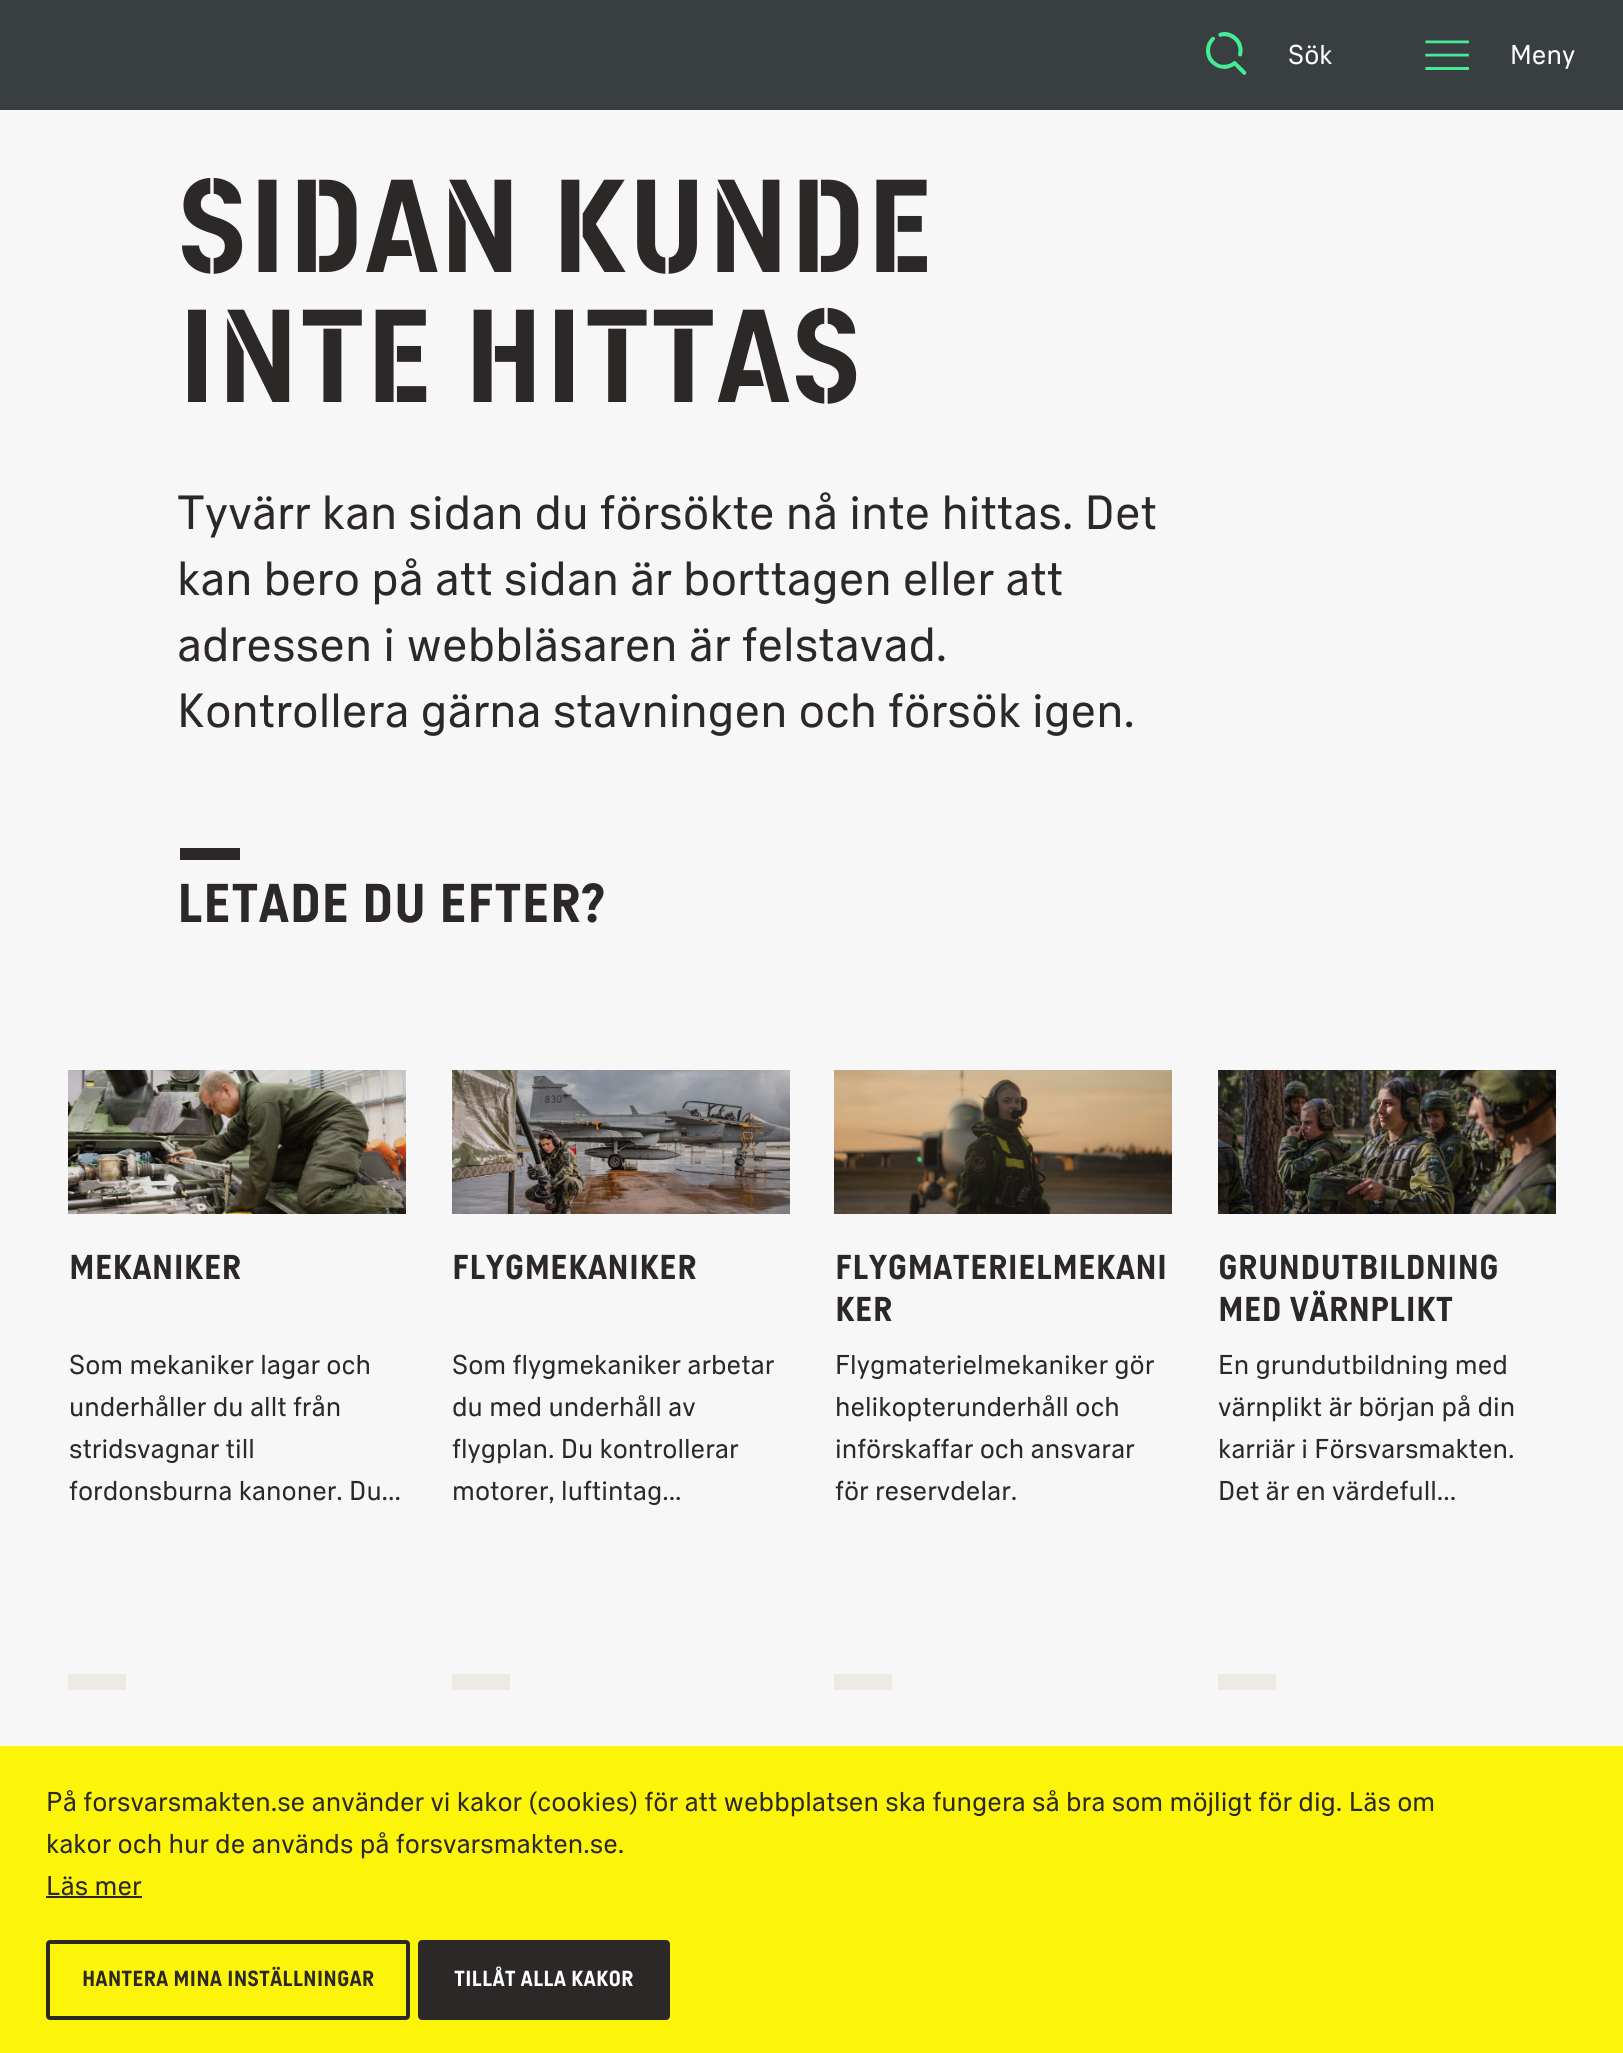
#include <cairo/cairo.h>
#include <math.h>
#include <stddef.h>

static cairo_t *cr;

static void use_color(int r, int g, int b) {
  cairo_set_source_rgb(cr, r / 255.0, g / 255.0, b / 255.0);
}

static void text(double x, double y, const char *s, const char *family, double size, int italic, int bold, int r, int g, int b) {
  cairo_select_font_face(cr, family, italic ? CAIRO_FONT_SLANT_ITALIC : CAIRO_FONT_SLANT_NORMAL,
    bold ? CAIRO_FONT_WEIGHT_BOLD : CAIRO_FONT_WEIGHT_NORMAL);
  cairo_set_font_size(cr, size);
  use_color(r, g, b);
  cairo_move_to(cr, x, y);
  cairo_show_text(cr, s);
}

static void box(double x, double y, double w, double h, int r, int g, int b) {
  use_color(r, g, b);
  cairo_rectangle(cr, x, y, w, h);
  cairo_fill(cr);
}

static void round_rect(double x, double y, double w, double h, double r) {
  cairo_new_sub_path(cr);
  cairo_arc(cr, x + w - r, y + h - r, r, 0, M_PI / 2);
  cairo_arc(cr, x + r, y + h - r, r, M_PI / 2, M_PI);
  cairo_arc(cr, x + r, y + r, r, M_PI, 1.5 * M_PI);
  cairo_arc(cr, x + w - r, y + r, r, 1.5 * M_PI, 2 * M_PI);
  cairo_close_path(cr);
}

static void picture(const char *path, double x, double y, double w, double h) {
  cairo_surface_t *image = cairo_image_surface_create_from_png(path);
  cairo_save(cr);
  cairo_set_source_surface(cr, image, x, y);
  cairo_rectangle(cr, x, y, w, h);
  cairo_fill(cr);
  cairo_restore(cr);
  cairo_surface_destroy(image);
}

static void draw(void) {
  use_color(247, 247, 247);
  cairo_paint(cr);
  box(0, 0, 1623, 110, 57, 62, 64);
  picture("img_01.png", 1205, 32, 42, 43);
  picture("img_02.png", 1425, 40, 44, 30);
  box(0, 1746, 1623, 307, 253, 245, 9);
  box(46, 1896, 96, 2, 43, 40, 39);
  round_rect(48, 1942, 360, 76, 2);
  cairo_set_line_width(cr, 4);
  cairo_stroke(cr);
  round_rect(420, 1942, 248, 76, 2);
  cairo_fill_preserve(cr);
  cairo_stroke(cr);
  box(180, 848, 60, 12, 43, 40, 39);
  picture("img_03.png", 68, 1070, 338, 144);
  box(68, 1674, 58, 16, 237, 234, 230);
  picture("img_04.png", 452, 1070, 338, 144);
  box(452, 1674, 58, 16, 237, 234, 230);
  picture("img_05.png", 834, 1070, 338, 144);
  box(834, 1674, 58, 16, 237, 234, 230);
  picture("img_06.png", 1218, 1070, 338, 144);
  box(1218, 1674, 58, 16, 237, 234, 230);
  text(1288, 64, "Sök", "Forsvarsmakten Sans", 26.85, 0, 0, 255, 255, 255);
  text(1510, 64, "Meny", "Forsvarsmakten Sans", 26.85, 0, 0, 255, 255, 255);
  text(46, 1811, "På forsvarsmakten.se använder vi kakor (cookies) för att webbplatsen ska fungera så bra som möjligt för dig. Läs om", "Forsvarsmakten Sans", 26.85, 0, 0, 43, 40, 39);
  text(46, 1853, "kakor och hur de används på forsvarsmakten.se.", "Forsvarsmakten Sans", 26.85, 0, 0, 43, 40, 39);
  text(46, 1895, "Läs mer", "Forsvarsmakten Sans", 26.85, 0, 0, 43, 40, 39);
  text(82, 1986, "HANTERA MINA INSTÄLLNINGAR", "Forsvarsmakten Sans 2", 21.5, 0, 1, 43, 40, 39);
  text(454, 1986, "TILLÅT ALLA KAKOR", "Forsvarsmakten Sans 2", 21.5, 0, 1, 255, 255, 255);
  text(177, 272, "SIDAN KUNDE", "Forsvarsmakten Sans", 130, 0, 1, 43, 40, 39);
  text(177, 402, "INTE HITTAS", "Forsvarsmakten Sans", 130, 0, 1, 43, 40, 39);
  text(177, 529, "Tyvärr kan sidan du försökte nå inte hittas. Det", "Forsvarsmakten Sans", 47.25, 0, 0, 43, 40, 39);
  text(177, 595, "kan bero på att sidan är borttagen eller att", "Forsvarsmakten Sans", 47.25, 0, 0, 43, 40, 39);
  text(177, 661, "adressen i webbläsaren är felstavad.", "Forsvarsmakten Sans", 47.25, 0, 0, 43, 40, 39);
  text(177, 727, "Kontrollera gärna stavningen och försök igen.", "Forsvarsmakten Sans", 47.25, 0, 0, 43, 40, 39);
  text(177, 922, "LETADE DU EFTER?", "Forsvarsmakten Sans 2", 53.75, 0, 1, 43, 40, 39);
  text(69, 1279, "MEKANIKER", "Forsvarsmakten Sans 2", 34, 0, 1, 43, 40, 39);
  text(69, 1374, "Som mekaniker lagar och", "Forsvarsmakten Sans", 26.85, 0, 0, 43, 40, 39);
  text(69, 1416, "underhåller du allt från", "Forsvarsmakten Sans", 26.85, 0, 0, 43, 40, 39);
  text(69, 1458, "stridsvagnar till", "Forsvarsmakten Sans", 26.85, 0, 0, 43, 40, 39);
  text(69, 1500, "fordonsburna kanoner. Du...", "Forsvarsmakten Sans", 26.85, 0, 0, 43, 40, 39);
  text(452, 1279, "FLYGMEKANIKER", "Forsvarsmakten Sans 2", 34, 0, 1, 43, 40, 39);
  text(452, 1374, "Som flygmekaniker arbetar", "Forsvarsmakten Sans", 26.85, 0, 0, 43, 40, 39);
  text(452, 1416, "du med underhåll av", "Forsvarsmakten Sans", 26.85, 0, 0, 43, 40, 39);
  text(452, 1458, "flygplan. Du kontrollerar", "Forsvarsmakten Sans", 26.85, 0, 0, 43, 40, 39);
  text(452, 1500, "motorer, luftintag...", "Forsvarsmakten Sans", 26.85, 0, 0, 43, 40, 39);
  text(835, 1279, "FLYGMATERIELMEKANI", "Forsvarsmakten Sans 2", 34, 0, 1, 43, 40, 39);
  text(835, 1321, "KER", "Forsvarsmakten Sans 2", 34, 0, 1, 43, 40, 39);
  text(835, 1374, "Flygmaterielmekaniker gör", "Forsvarsmakten Sans", 26.85, 0, 0, 43, 40, 39);
  text(835, 1416, "helikopterunderhåll och", "Forsvarsmakten Sans", 26.85, 0, 0, 43, 40, 39);
  text(835, 1458, "införskaffar och ansvarar", "Forsvarsmakten Sans", 26.85, 0, 0, 43, 40, 39);
  text(835, 1500, "för reservdelar.", "Forsvarsmakten Sans", 26.85, 0, 0, 43, 40, 39);
  text(1218, 1279, "GRUNDUTBILDNING", "Forsvarsmakten Sans 2", 34, 0, 1, 43, 40, 39);
  text(1218, 1321, "MED VÄRNPLIKT", "Forsvarsmakten Sans 2", 34, 0, 1, 43, 40, 39);
  text(1218, 1374, "En grundutbildning med", "Forsvarsmakten Sans", 26.85, 0, 0, 43, 40, 39);
  text(1218, 1416, "värnplikt är början på din", "Forsvarsmakten Sans", 26.85, 0, 0, 43, 40, 39);
  text(1218, 1458, "karriär i Försvarsmakten.", "Forsvarsmakten Sans", 26.85, 0, 0, 43, 40, 39);
  text(1218, 1500, "Det är en värdefull...", "Forsvarsmakten Sans", 26.85, 0, 0, 43, 40, 39);
}

int main(void) {
  cairo_surface_t *surface = cairo_image_surface_create(CAIRO_FORMAT_RGB24, 1623, 2053);
  cr = cairo_create(surface);
  cairo_font_options_t *options = cairo_font_options_create();
  cairo_font_options_set_hint_metrics(options, CAIRO_HINT_METRICS_OFF);
  cairo_font_options_set_hint_style(options, CAIRO_HINT_STYLE_NONE);
  cairo_set_font_options(cr, options);
  cairo_set_miter_limit(cr, 4);
  draw();
  cairo_surface_write_to_png(surface, "out.png");
  cairo_font_options_destroy(options);
  cairo_destroy(cr);
  cairo_surface_destroy(surface);
  return 0;
}
